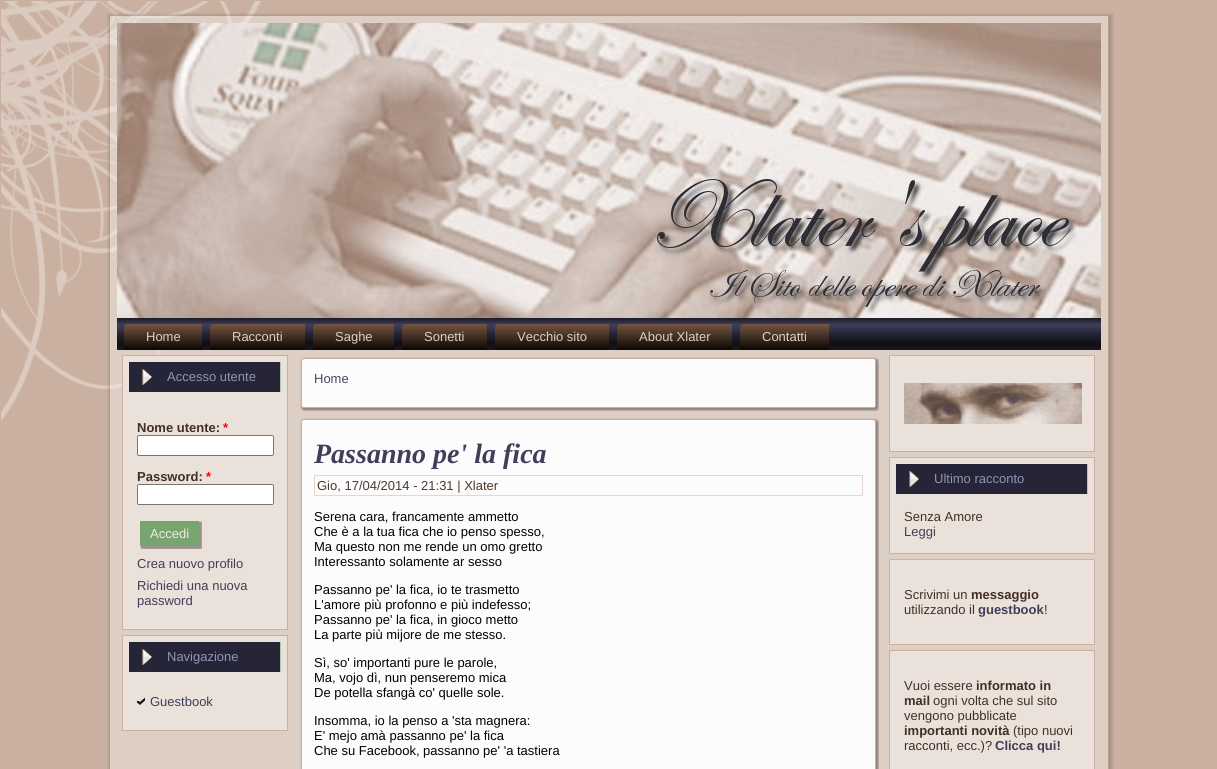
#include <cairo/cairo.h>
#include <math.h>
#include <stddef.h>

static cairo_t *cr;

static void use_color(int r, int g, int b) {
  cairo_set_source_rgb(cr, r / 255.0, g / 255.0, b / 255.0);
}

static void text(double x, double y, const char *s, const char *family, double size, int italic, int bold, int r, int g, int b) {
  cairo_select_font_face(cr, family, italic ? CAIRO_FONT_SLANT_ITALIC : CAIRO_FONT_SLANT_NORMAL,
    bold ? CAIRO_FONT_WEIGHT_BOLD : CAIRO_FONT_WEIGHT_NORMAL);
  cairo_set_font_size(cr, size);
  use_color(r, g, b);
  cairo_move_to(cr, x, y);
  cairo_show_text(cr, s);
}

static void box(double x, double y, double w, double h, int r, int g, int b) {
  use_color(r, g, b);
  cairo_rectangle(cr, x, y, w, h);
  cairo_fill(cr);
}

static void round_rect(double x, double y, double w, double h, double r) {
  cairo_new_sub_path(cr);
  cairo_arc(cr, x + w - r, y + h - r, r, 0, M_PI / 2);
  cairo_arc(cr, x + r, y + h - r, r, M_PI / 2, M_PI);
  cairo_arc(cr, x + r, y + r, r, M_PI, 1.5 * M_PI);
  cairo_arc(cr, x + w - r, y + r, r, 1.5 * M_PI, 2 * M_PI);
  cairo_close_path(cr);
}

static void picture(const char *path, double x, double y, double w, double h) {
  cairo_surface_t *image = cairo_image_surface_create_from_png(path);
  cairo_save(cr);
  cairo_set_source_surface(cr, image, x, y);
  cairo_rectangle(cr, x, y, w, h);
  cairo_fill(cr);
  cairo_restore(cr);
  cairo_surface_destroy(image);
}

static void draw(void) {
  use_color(202, 176, 160);
  cairo_paint(cr);
  picture("img_01.png", 1, 1, 261, 421);
  picture("img_02.png", 107, 13, 18, 18);
  picture("img_03.png", 125, 13, 968, 10);
  picture("img_04.png", 1093, 13, 21, 18);
  picture("img_05.png", 107, 31, 18, 738);
  picture("img_33.png", 1093, 31, 21, 738);
  picture("img_06.png", 117, 23, 984, 295);
  picture("img_07.png", 117, 318, 984, 32);
  picture("img_08.png", 124, 324, 75, 26);
  picture("img_09.png", 199, 324, 3, 26);
  picture("img_10.png", 210, 324, 92, 26);
  picture("img_09.png", 302, 324, 3, 26);
  picture("img_11.png", 313, 324, 78, 26);
  picture("img_09.png", 391, 324, 3, 26);
  picture("img_12.png", 402, 324, 82, 26);
  picture("img_09.png", 484, 324, 3, 26);
  picture("img_13.png", 495, 324, 111, 26);
  picture("img_09.png", 606, 324, 3, 26);
  picture("img_14.png", 617, 324, 112, 26);
  picture("img_09.png", 729, 324, 3, 26);
  picture("img_15.png", 740, 324, 86, 26);
  picture("img_09.png", 826, 324, 3, 26);
  box(122, 355, 1, 1, 204, 183, 168);
  cairo_set_source_rgba(cr, 0.988, 0.988, 0.988, 0.4);
  cairo_rectangle(cr, 125, 350, 968, 419);
  cairo_fill(cr);
  box(123, 355, 164, 1, 202, 176, 160);
  box(287, 355, 1, 1, 204, 183, 168);
  box(122, 356, 1, 273, 202, 176, 160);
  box(123, 356, 164, 273, 235, 225, 219);
  box(287, 356, 1, 273, 202, 176, 160);
  box(129, 362, 151, 30, 38, 37, 55);
  picture("img_16.png", 280, 362, 1, 30);
  picture("img_17.png", 142, 369, 10, 16);
  use_color(255, 255, 255);
  round_rect(137.5, 435.5, 136, 20, 1.5);
  cairo_fill_preserve(cr);
  use_color(118, 118, 118);
  cairo_set_line_width(cr, 1);
  cairo_stroke(cr);
  use_color(255, 255, 255);
  round_rect(137.5, 484.5, 136, 20, 1.5);
  cairo_fill_preserve(cr);
  use_color(118, 118, 118);
  cairo_stroke(cr);
  picture("img_18.png", 140, 521, 55, 28);
  picture("img_19.png", 195, 521, 7, 28);
  box(122, 629, 1, 1, 202, 178, 162);
  box(123, 629, 164, 1, 202, 176, 160);
  box(287, 629, 1, 1, 202, 178, 162);
  box(122, 635, 1, 1, 204, 183, 168);
  box(123, 635, 164, 1, 202, 176, 160);
  box(287, 635, 1, 1, 204, 183, 168);
  box(122, 636, 1, 94, 202, 176, 160);
  box(123, 636, 164, 94, 235, 225, 219);
  box(287, 636, 1, 94, 202, 176, 160);
  box(129, 642, 151, 30, 38, 37, 55);
  picture("img_16.png", 280, 642, 1, 30);
  picture("img_17.png", 142, 649, 10, 16);
  picture("img_20.png", 137, 698, 8, 7);
  box(122, 730, 1, 1, 202, 178, 162);
  box(123, 730, 164, 1, 202, 176, 160);
  box(287, 730, 1, 1, 202, 178, 162);
  picture("img_21.png", 300, 357, 13, 13);
  picture("img_22.png", 313, 357, 551, 13);
  picture("img_23.png", 864, 357, 15, 13);
  picture("img_24.png", 300, 370, 13, 26);
  box(313, 370, 551, 26, 253, 252, 252);
  picture("img_25.png", 864, 370, 15, 26);
  picture("img_26.png", 300, 396, 13, 15);
  picture("img_27.png", 313, 396, 551, 15);
  picture("img_28.png", 864, 396, 15, 15);
  picture("img_21.png", 300, 418, 13, 13);
  picture("img_22.png", 313, 418, 551, 13);
  picture("img_23.png", 864, 418, 15, 13);
  picture("img_29.png", 300, 431, 13, 338);
  box(313, 431, 551, 338, 253, 252, 252);
  picture("img_30.png", 864, 431, 15, 338);
  cairo_rectangle(cr, 314.5, 475.5, 548, 20);
  use_color(227, 214, 206);
  cairo_stroke(cr);
  box(889, 355, 1, 1, 204, 183, 168);
  box(890, 355, 204, 1, 202, 176, 160);
  box(1094, 355, 1, 1, 204, 183, 168);
  box(889, 356, 1, 95, 202, 176, 160);
  box(890, 356, 204, 95, 235, 225, 219);
  box(1094, 356, 1, 95, 202, 176, 160);
  picture("img_31.png", 904, 383, 178, 41);
  box(889, 451, 1, 1, 202, 178, 162);
  box(890, 451, 204, 1, 202, 176, 160);
  box(1094, 451, 1, 1, 202, 178, 162);
  box(889, 457, 1, 1, 204, 183, 168);
  box(890, 457, 204, 1, 202, 176, 160);
  box(1094, 457, 1, 1, 204, 183, 168);
  box(889, 458, 1, 95, 202, 176, 160);
  box(890, 458, 204, 95, 235, 225, 219);
  box(1094, 458, 1, 95, 202, 176, 160);
  box(896, 464, 191, 30, 38, 37, 55);
  picture("img_16.png", 1087, 464, 1, 30);
  picture("img_32.png", 909, 471, 10, 16);
  box(889, 553, 1, 1, 202, 178, 162);
  box(890, 553, 204, 1, 202, 176, 160);
  box(1094, 553, 1, 1, 202, 178, 162);
  box(889, 559, 1, 1, 204, 183, 168);
  box(890, 559, 204, 1, 202, 176, 160);
  box(1094, 559, 1, 1, 204, 183, 168);
  box(889, 560, 1, 84, 202, 176, 160);
  box(890, 560, 204, 84, 235, 225, 219);
  box(1094, 560, 1, 84, 202, 176, 160);
  box(889, 644, 1, 1, 202, 178, 162);
  box(890, 644, 204, 1, 202, 176, 160);
  box(1094, 644, 1, 1, 202, 178, 162);
  box(889, 650, 1, 1, 204, 183, 168);
  box(890, 650, 204, 1, 202, 176, 160);
  box(1094, 650, 1, 1, 204, 183, 168);
  box(889, 651, 1, 118, 202, 176, 160);
  box(890, 651, 204, 118, 235, 225, 219);
  box(1094, 651, 1, 118, 202, 176, 160);
  text(146, 341, "Home", "Liberation Sans", 13, 0, 0, 222, 206, 196);
  text(232, 341, "Racconti", "Liberation Sans", 13, 0, 0, 222, 206, 196);
  text(335, 341, "Saghe", "Liberation Sans", 13, 0, 0, 222, 206, 196);
  text(424, 341, "Sonetti", "Liberation Sans", 13, 0, 0, 222, 206, 196);
  text(517, 341, "Vecchio sito", "Liberation Sans", 13, 0, 0, 222, 206, 196);
  text(639, 341, "About Xlater", "Liberation Sans", 13, 0, 0, 222, 206, 196);
  text(762, 341, "Contatti", "Liberation Sans", 13, 0, 0, 222, 206, 196);
  text(167, 381, "Accesso utente", "Liberation Sans", 13, 0, 0, 148, 146, 181);
  text(137, 432, "Nome utente:", "Liberation Sans", 13, 0, 1, 65, 47, 37);
  text(223, 432, "*", "Liberation Sans", 13, 0, 1, 255, 0, 0);
  text(137, 481, "Password:", "Liberation Sans", 13, 0, 1, 65, 47, 37);
  text(206, 481, "*", "Liberation Sans", 13, 0, 1, 255, 0, 0);
  text(150, 538, "Accedi", "Liberation Sans", 13, 0, 0, 240, 233, 229);
  text(137, 568, "Crea nuovo profilo", "Liberation Sans", 13, 0, 0, 63, 62, 91);
  text(137, 590, "Richiedi una nuova", "Liberation Sans", 13, 0, 0, 63, 62, 91);
  text(137, 605, "password", "Liberation Sans", 13, 0, 0, 63, 62, 91);
  text(167, 661, "Navigazione", "Liberation Sans", 13, 0, 0, 148, 146, 181);
  text(150, 706, "Guestbook", "Liberation Sans", 13, 0, 0, 63, 62, 91);
  text(314, 383, "Home", "Liberation Sans", 13, 0, 0, 72, 70, 103);
  text(314, 463, "Passanno pe' la fica", "Liberation Serif", 28, 1, 1, 63, 62, 91);
  text(317, 490, "Gio, 17/04/2014 - 21:31 | Xlater", "Liberation Sans", 13, 0, 0, 78, 57, 44);
  text(314, 521, "Serena cara, francamente ammetto", "Liberation Sans", 13, 0, 0, 0, 0, 0);
  text(314, 536, "Che è a la tua fica che io penso spesso,", "Liberation Sans", 13, 0, 0, 0, 0, 0);
  text(314, 551, "Ma questo non me rende un omo gretto", "Liberation Sans", 13, 0, 0, 0, 0, 0);
  text(314, 566, "Interessanto solamente ar sesso", "Liberation Sans", 13, 0, 0, 0, 0, 0);
  text(314, 594, "Passanno pe' la fica, io te trasmetto", "Liberation Sans", 13, 0, 0, 0, 0, 0);
  text(314, 609, "L'amore più profonno e più indefesso;", "Liberation Sans", 13, 0, 0, 0, 0, 0);
  text(314, 624, "Passanno pe' la fica, in gioco metto", "Liberation Sans", 13, 0, 0, 0, 0, 0);
  text(314, 639, "La parte più mijore de me stesso.", "Liberation Sans", 13, 0, 0, 0, 0, 0);
  text(314, 667, "Sì, so' importanti pure le parole,", "Liberation Sans", 13, 0, 0, 0, 0, 0);
  text(314, 682, "Ma, vojo dì, nun penseremo mica", "Liberation Sans", 13, 0, 0, 0, 0, 0);
  text(314, 697, "De potella sfangà co' quelle sole.", "Liberation Sans", 13, 0, 0, 0, 0, 0);
  text(314, 725, "Insomma, io la penso a 'sta magnera:", "Liberation Sans", 13, 0, 0, 0, 0, 0);
  text(314, 740, "E' mejo amà passanno pe' la fica", "Liberation Sans", 13, 0, 0, 0, 0, 0);
  text(314, 755, "Che su Facebook, passanno pe' 'a tastiera", "Liberation Sans", 13, 0, 0, 0, 0, 0);
  text(934, 483, "Ultimo racconto", "Liberation Sans", 13, 0, 0, 148, 146, 181);
  text(904, 521, "Senza Amore", "Liberation Sans", 13, 0, 0, 65, 47, 37);
  text(904, 536, "Leggi", "Liberation Sans", 13, 0, 0, 63, 62, 91);
  text(904, 599, "Scrivimi un", "Liberation Sans", 13, 0, 0, 65, 47, 37);
  text(971, 599, "messaggio", "Liberation Sans", 13, 0, 1, 65, 47, 37);
  text(904, 614, "utilizzando il", "Liberation Sans", 13, 0, 0, 65, 47, 37);
  text(978, 614, "guestbook", "Liberation Sans", 13, 0, 1, 63, 62, 91);
  text(1044, 614, "!", "Liberation Sans", 13, 0, 0, 65, 47, 37);
  text(904, 690, "Vuoi essere", "Liberation Sans", 13, 0, 0, 65, 47, 37);
  text(976, 690, "informato in", "Liberation Sans", 13, 0, 1, 65, 47, 37);
  text(904, 705, "mail", "Liberation Sans", 13, 0, 1, 65, 47, 37);
  text(933, 705, "ogni volta che sul sito", "Liberation Sans", 13, 0, 0, 65, 47, 37);
  text(904, 720, "vengono pubblicate", "Liberation Sans", 13, 0, 0, 65, 47, 37);
  text(904, 735, "importanti novità", "Liberation Sans", 13, 0, 1, 65, 47, 37);
  text(1013, 735, "(tipo nuovi", "Liberation Sans", 13, 0, 0, 65, 47, 37);
  text(904, 750, "racconti, ecc.)?", "Liberation Sans", 13, 0, 0, 65, 47, 37);
  text(995, 750, "Clicca qui!", "Liberation Sans", 13, 0, 1, 63, 62, 91);
}

int main(void) {
  cairo_surface_t *surface = cairo_image_surface_create(CAIRO_FORMAT_RGB24, 1217, 769);
  cr = cairo_create(surface);
  cairo_font_options_t *options = cairo_font_options_create();
  cairo_font_options_set_hint_metrics(options, CAIRO_HINT_METRICS_OFF);
  cairo_font_options_set_hint_style(options, CAIRO_HINT_STYLE_NONE);
  cairo_set_font_options(cr, options);
  cairo_set_miter_limit(cr, 4);
  draw();
  cairo_surface_write_to_png(surface, "out.png");
  cairo_font_options_destroy(options);
  cairo_destroy(cr);
  cairo_surface_destroy(surface);
  return 0;
}
